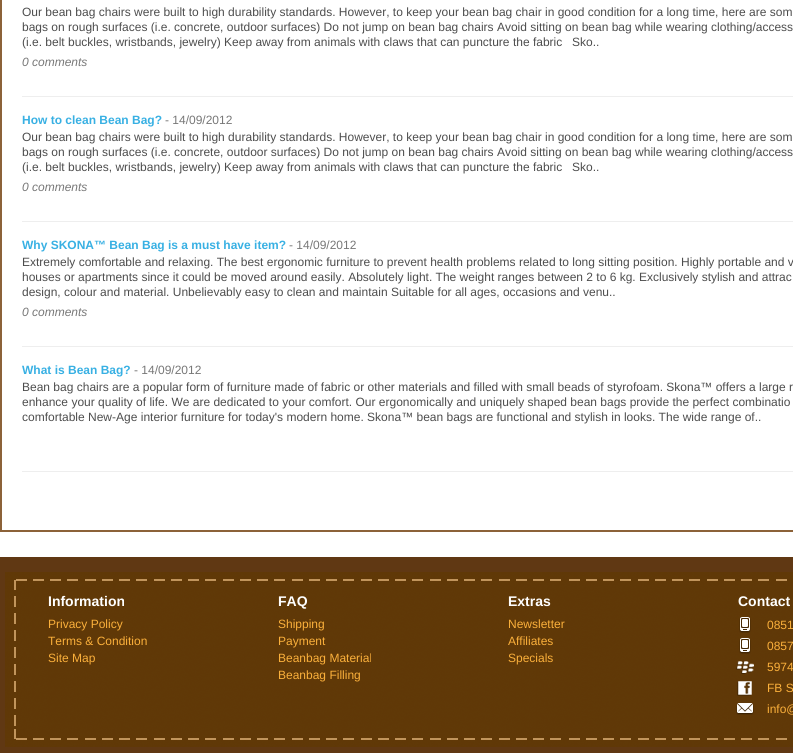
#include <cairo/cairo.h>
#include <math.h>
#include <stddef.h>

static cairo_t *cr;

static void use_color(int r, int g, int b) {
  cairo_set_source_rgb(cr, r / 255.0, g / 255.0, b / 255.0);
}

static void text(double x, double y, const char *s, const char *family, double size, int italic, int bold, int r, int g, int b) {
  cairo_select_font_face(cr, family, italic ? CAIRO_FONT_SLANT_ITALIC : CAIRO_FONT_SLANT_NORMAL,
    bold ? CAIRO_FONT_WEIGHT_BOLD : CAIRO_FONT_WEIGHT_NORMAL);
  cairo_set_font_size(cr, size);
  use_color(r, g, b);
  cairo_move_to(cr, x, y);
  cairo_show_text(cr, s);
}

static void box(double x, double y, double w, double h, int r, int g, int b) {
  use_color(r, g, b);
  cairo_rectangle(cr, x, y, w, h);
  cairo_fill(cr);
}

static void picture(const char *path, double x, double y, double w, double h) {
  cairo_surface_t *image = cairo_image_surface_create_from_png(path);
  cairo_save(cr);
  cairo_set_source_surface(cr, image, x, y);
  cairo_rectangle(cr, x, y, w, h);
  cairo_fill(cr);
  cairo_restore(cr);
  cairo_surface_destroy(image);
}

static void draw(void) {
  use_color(255, 255, 255);
  cairo_paint(cr);
  cairo_rectangle(cr, 1, -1, 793, 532);
  use_color(140, 98, 57);
  cairo_stroke(cr);
  box(22, 96, 771, 1, 238, 238, 238);
  box(22, 221, 771, 1, 238, 238, 238);
  box(22, 346, 771, 1, 238, 238, 238);
  box(22, 471, 771, 1, 238, 238, 238);
  box(0, 557, 793, 196, 96, 56, 19);
  picture("img_01.png", 5, 572, 788, 19);
  picture("img_02.png", 5, 591, 788, 137);
  picture("img_03.png", 739, 617, 12, 16);
  picture("img_04.png", 739, 638, 12, 16);
  picture("img_05.png", 736, 661, 18, 13);
  picture("img_06.png", 737, 681, 15, 15);
  picture("img_07.png", 736, 703, 18, 12);
  picture("img_08.png", 5, 728, 788, 19);
  text(22, 16, "Our bean bag chairs were built to high durability standards. However, to keep your bean bag chair in good condition for a long time, here are som", "Liberation Sans", 12, 0, 0, 77, 77, 77);
  text(22, 31, "bags on rough surfaces (i.e. concrete, outdoor surfaces) Do not jump on bean bag chairs Avoid sitting on bean bag while wearing clothing/access", "Liberation Sans", 12, 0, 0, 77, 77, 77);
  text(22, 46, "(i.e. belt buckles, wristbands, jewelry) Keep away from animals with claws that can puncture the fabric", "Liberation Sans", 12, 0, 0, 77, 77, 77);
  text(572, 46, "Sko..", "Liberation Sans", 12, 0, 0, 77, 77, 77);
  text(22, 66, "0 comments", "Liberation Sans", 12, 1, 0, 119, 119, 119);
  text(22, 124, "How to clean Bean Bag?", "Liberation Sans", 12, 0, 1, 56, 176, 227);
  text(165, 124, "- 14/09/2012", "Liberation Sans", 12, 0, 0, 119, 119, 119);
  text(22, 141, "Our bean bag chairs were built to high durability standards. However, to keep your bean bag chair in good condition for a long time, here are som", "Liberation Sans", 12, 0, 0, 77, 77, 77);
  text(22, 156, "bags on rough surfaces (i.e. concrete, outdoor surfaces) Do not jump on bean bag chairs Avoid sitting on bean bag while wearing clothing/access", "Liberation Sans", 12, 0, 0, 77, 77, 77);
  text(22, 171, "(i.e. belt buckles, wristbands, jewelry) Keep away from animals with claws that can puncture the fabric", "Liberation Sans", 12, 0, 0, 77, 77, 77);
  text(572, 171, "Sko..", "Liberation Sans", 12, 0, 0, 77, 77, 77);
  text(22, 191, "0 comments", "Liberation Sans", 12, 1, 0, 119, 119, 119);
  text(22, 249, "Why SKONA™ Bean Bag is a must have item?", "Liberation Sans", 12, 0, 1, 56, 176, 227);
  text(289, 249, "- 14/09/2012", "Liberation Sans", 12, 0, 0, 119, 119, 119);
  text(22, 266, "Extremely comfortable and relaxing. The best ergonomic furniture to prevent health problems related to long sitting position. Highly portable and v", "Liberation Sans", 12, 0, 0, 77, 77, 77);
  text(22, 281, "houses or apartments since it could be moved around easily. Absolutely light. The weight ranges between 2 to 6 kg. Exclusively stylish and attrac", "Liberation Sans", 12, 0, 0, 77, 77, 77);
  text(22, 296, "design, colour and material. Unbelievably easy to clean and maintain Suitable for all ages, occasions and venu..", "Liberation Sans", 12, 0, 0, 77, 77, 77);
  text(22, 316, "0 comments", "Liberation Sans", 12, 1, 0, 119, 119, 119);
  text(22, 374, "What is Bean Bag?", "Liberation Sans", 12, 0, 1, 56, 176, 227);
  text(134, 374, "- 14/09/2012", "Liberation Sans", 12, 0, 0, 119, 119, 119);
  text(22, 391, "Bean bag chairs are a popular form of furniture made of fabric or other materials and filled with small beads of styrofoam. Skona™ offers a large r", "Liberation Sans", 12, 0, 0, 77, 77, 77);
  text(22, 406, "enhance your quality of life. We are dedicated to your comfort. Our ergonomically and uniquely shaped bean bags provide the perfect combinatio", "Liberation Sans", 12, 0, 0, 77, 77, 77);
  text(22, 421, "comfortable New-Age interior furniture for today's modern home. Skona™ bean bags are functional and stylish in looks. The wide range of..", "Liberation Sans", 12, 0, 0, 77, 77, 77);
  text(48, 606, "Information", "Liberation Sans", 14, 0, 1, 255, 255, 255);
  text(48, 628, "Privacy Policy", "Liberation Sans", 12, 0, 0, 251, 176, 59);
  text(48, 645, "Terms & Condition", "Liberation Sans", 12, 0, 0, 251, 176, 59);
  text(48, 662, "Site Map", "Liberation Sans", 12, 0, 0, 251, 176, 59);
  text(278, 606, "FAQ", "Liberation Sans", 14, 0, 1, 255, 255, 255);
  text(278, 628, "Shipping", "Liberation Sans", 12, 0, 0, 251, 176, 59);
  text(278, 645, "Payment", "Liberation Sans", 12, 0, 0, 251, 176, 59);
  text(278, 662, "Beanbag Material", "Liberation Sans", 12, 0, 0, 251, 176, 59);
  text(278, 679, "Beanbag Filling", "Liberation Sans", 12, 0, 0, 251, 176, 59);
  text(508, 606, "Extras", "Liberation Sans", 14, 0, 1, 255, 255, 255);
  text(508, 628, "Newsletter", "Liberation Sans", 12, 0, 0, 251, 176, 59);
  text(508, 645, "Affiliates", "Liberation Sans", 12, 0, 0, 251, 176, 59);
  text(508, 662, "Specials", "Liberation Sans", 12, 0, 0, 251, 176, 59);
  text(738, 606, "Contact", "Liberation Sans", 14, 0, 1, 255, 255, 255);
  text(767, 629, "0851", "Liberation Sans", 12, 0, 0, 251, 176, 59);
  text(767, 650, "0857", "Liberation Sans", 12, 0, 0, 251, 176, 59);
  text(767, 671, "5974", "Liberation Sans", 12, 0, 0, 251, 176, 59);
  text(767, 692, "FB S", "Liberation Sans", 12, 0, 0, 251, 176, 59);
  text(767, 713, "info@", "Liberation Sans", 12, 0, 0, 251, 176, 59);
}

int main(void) {
  cairo_surface_t *surface = cairo_image_surface_create(CAIRO_FORMAT_RGB24, 793, 753);
  cr = cairo_create(surface);
  cairo_font_options_t *options = cairo_font_options_create();
  cairo_font_options_set_hint_metrics(options, CAIRO_HINT_METRICS_OFF);
  cairo_font_options_set_hint_style(options, CAIRO_HINT_STYLE_NONE);
  cairo_set_font_options(cr, options);
  cairo_set_miter_limit(cr, 4);
  draw();
  cairo_surface_write_to_png(surface, "out.png");
  cairo_font_options_destroy(options);
  cairo_destroy(cr);
  cairo_surface_destroy(surface);
  return 0;
}
